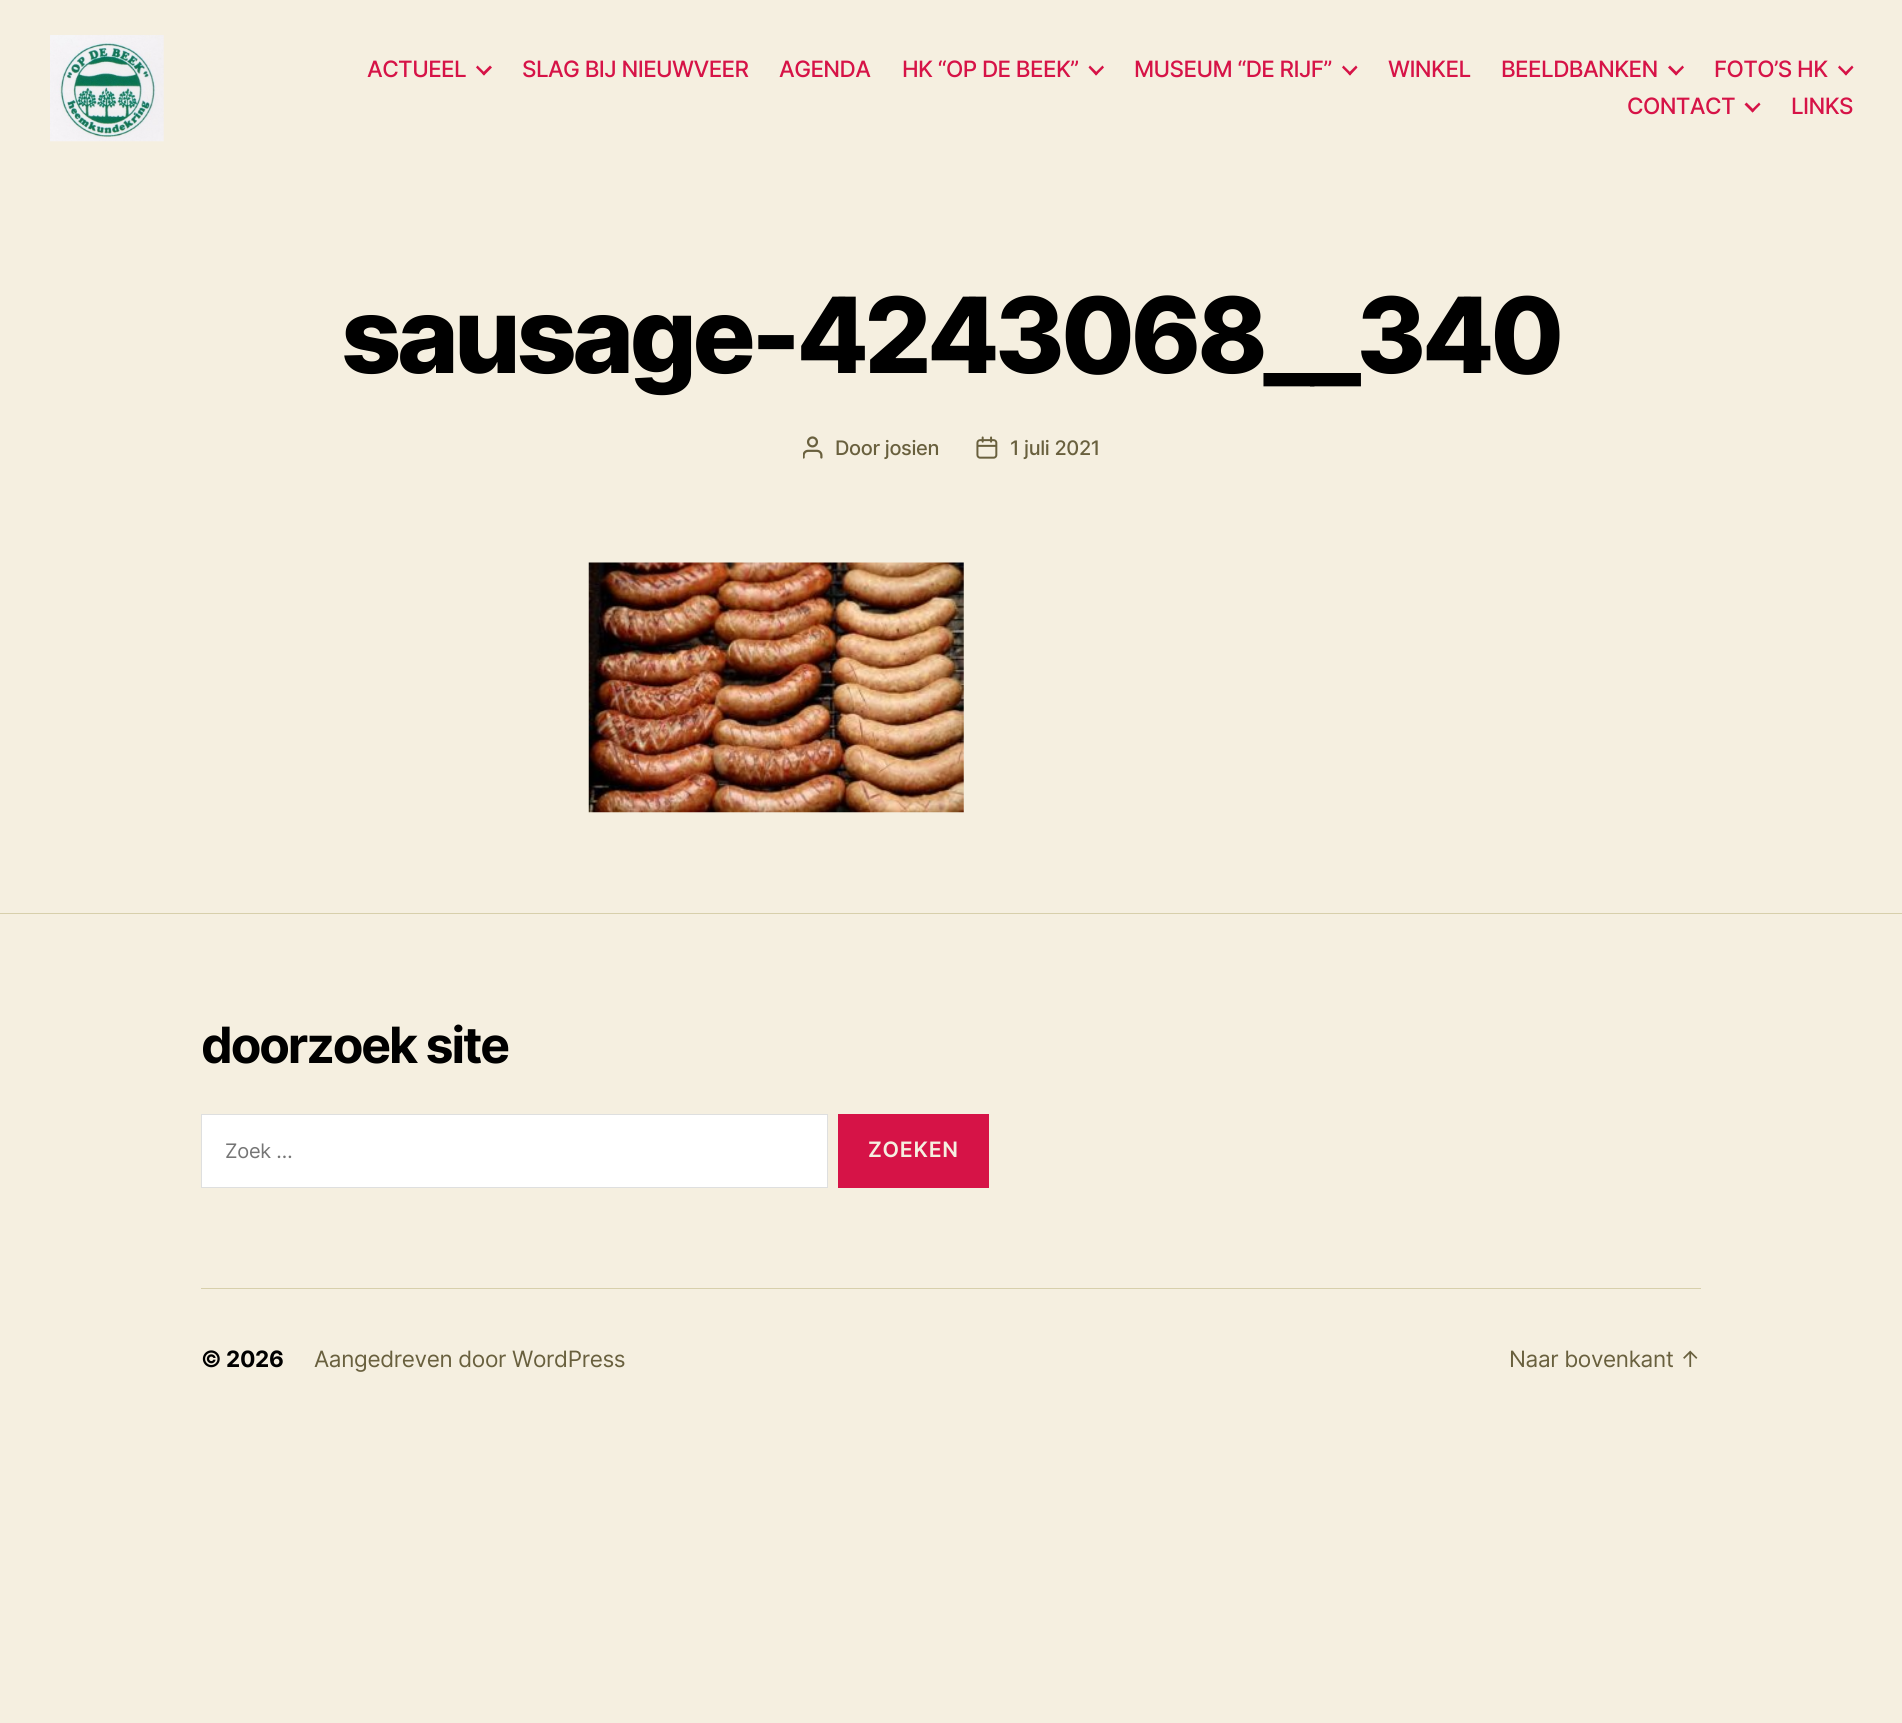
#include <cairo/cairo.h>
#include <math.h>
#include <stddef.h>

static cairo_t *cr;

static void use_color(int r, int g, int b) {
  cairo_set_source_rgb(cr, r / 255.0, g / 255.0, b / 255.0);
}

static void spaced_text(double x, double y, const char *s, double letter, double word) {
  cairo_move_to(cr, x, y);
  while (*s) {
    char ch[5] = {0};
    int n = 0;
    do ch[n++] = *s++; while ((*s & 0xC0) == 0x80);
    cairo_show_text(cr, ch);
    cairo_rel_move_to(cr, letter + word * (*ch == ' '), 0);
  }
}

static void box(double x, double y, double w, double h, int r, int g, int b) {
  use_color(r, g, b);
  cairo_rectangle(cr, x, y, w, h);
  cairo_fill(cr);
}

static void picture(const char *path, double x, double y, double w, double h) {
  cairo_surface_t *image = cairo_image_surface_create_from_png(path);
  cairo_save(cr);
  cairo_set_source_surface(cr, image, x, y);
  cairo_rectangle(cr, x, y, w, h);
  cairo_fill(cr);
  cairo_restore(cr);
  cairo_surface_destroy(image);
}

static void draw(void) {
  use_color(245, 239, 224);
  cairo_paint(cr);
  picture("img_01.png", 50, 35, 114, 107);
  use_color(214, 19, 71);
  cairo_new_path(cr);
  cairo_move_to(cr, 476, 67.5);
  cairo_line_to(cr, 477.5, 65.5);
  cairo_line_to(cr, 485.5, 73.5);
  cairo_line_to(cr, 484, 75.5);
  cairo_close_path(cr);
  cairo_fill(cr);
  cairo_new_path(cr);
  cairo_move_to(cr, 482, 73.5);
  cairo_line_to(cr, 490, 65.5);
  cairo_line_to(cr, 492, 67.5);
  cairo_line_to(cr, 484, 75.5);
  cairo_close_path(cr);
  cairo_fill(cr);
  cairo_new_path(cr);
  cairo_move_to(cr, 1088.5, 67.5);
  cairo_line_to(cr, 1090, 65.5);
  cairo_line_to(cr, 1098, 73.5);
  cairo_line_to(cr, 1096, 75.5);
  cairo_close_path(cr);
  cairo_fill(cr);
  cairo_new_path(cr);
  cairo_move_to(cr, 1094.5, 73.5);
  cairo_line_to(cr, 1102.5, 65.5);
  cairo_line_to(cr, 1104, 67.5);
  cairo_line_to(cr, 1096, 75.5);
  cairo_close_path(cr);
  cairo_fill(cr);
  cairo_new_path(cr);
  cairo_move_to(cr, 1342, 67.5);
  cairo_line_to(cr, 1343.5, 65.5);
  cairo_line_to(cr, 1351.5, 73.5);
  cairo_line_to(cr, 1350, 75.5);
  cairo_close_path(cr);
  cairo_fill(cr);
  cairo_new_path(cr);
  cairo_move_to(cr, 1348, 73.5);
  cairo_line_to(cr, 1356, 65.5);
  cairo_line_to(cr, 1357.5, 67.5);
  cairo_line_to(cr, 1350, 75.5);
  cairo_close_path(cr);
  cairo_fill(cr);
  cairo_new_path(cr);
  cairo_move_to(cr, 1668, 67.5);
  cairo_line_to(cr, 1670, 65.5);
  cairo_line_to(cr, 1678, 73.5);
  cairo_line_to(cr, 1676, 75.5);
  cairo_close_path(cr);
  cairo_fill(cr);
  cairo_new_path(cr);
  cairo_move_to(cr, 1674.5, 73.5);
  cairo_line_to(cr, 1682.5, 65.5);
  cairo_line_to(cr, 1684, 67.5);
  cairo_line_to(cr, 1676, 75.5);
  cairo_close_path(cr);
  cairo_fill(cr);
  cairo_new_path(cr);
  cairo_move_to(cr, 1838, 67.5);
  cairo_line_to(cr, 1839.5, 65.5);
  cairo_line_to(cr, 1847.5, 73.5);
  cairo_line_to(cr, 1846, 75.5);
  cairo_close_path(cr);
  cairo_fill(cr);
  cairo_new_path(cr);
  cairo_move_to(cr, 1844, 73.5);
  cairo_line_to(cr, 1852, 65.5);
  cairo_line_to(cr, 1853.5, 67.5);
  cairo_line_to(cr, 1846, 75.5);
  cairo_close_path(cr);
  cairo_fill(cr);
  cairo_new_path(cr);
  cairo_move_to(cr, 1744.5, 104.5);
  cairo_line_to(cr, 1746.5, 102.5);
  cairo_line_to(cr, 1754.5, 110.5);
  cairo_line_to(cr, 1752.5, 112.5);
  cairo_close_path(cr);
  cairo_fill(cr);
  cairo_new_path(cr);
  cairo_move_to(cr, 1751, 110.5);
  cairo_line_to(cr, 1759, 102.5);
  cairo_line_to(cr, 1760.5, 104.5);
  cairo_line_to(cr, 1752.5, 112.5);
  cairo_close_path(cr);
  cairo_fill(cr);
  picture("img_02.png", 803, 436, 20, 23);
  picture("img_03.png", 976, 436, 22, 23);
  picture("img_04.png", 588, 562, 376, 251);
  box(0, 913, 1902, 1, 215, 207, 171);
  box(201, 1288, 1500, 1, 215, 207, 171);
  use_color(255, 255, 255);
  cairo_rectangle(cr, 201.5, 1114.5, 626, 73);
  cairo_fill_preserve(cr);
  use_color(222, 223, 223);
  cairo_set_line_width(cr, 1);
  cairo_stroke(cr);
  box(838, 1114, 151, 74, 214, 19, 71);
  cairo_select_font_face(cr, "Inter Medium", CAIRO_FONT_SLANT_NORMAL, CAIRO_FONT_WEIGHT_NORMAL);
  cairo_set_font_size(cr, 22.5);
  spaced_text(367, 77, "ACTUEEL", -0.6, 0);
  spaced_text(522, 77, "SLAG BIJ NIEUWVEER", -0.6, 0);
  spaced_text(779, 77, "AGENDA", -0.6, 0);
  spaced_text(902, 77, "HK “OP DE BEEK”", -0.6, 0);
  spaced_text(1134, 77, "MUSEUM “DE RIJF”", -0.6, 0);
  spaced_text(1388, 77, "WINKEL", -0.6, 0);
  spaced_text(1501, 77, "BEELDBANKEN", -0.6, 0);
  spaced_text(1714, 77, "FOTO’S HK", -0.6, 0);
  spaced_text(1627, 114, "CONTACT", -0.6, 0);
  spaced_text(1791, 114, "LINKS", -0.6, 0);
  cairo_select_font_face(cr, "Inter ExtraBold", CAIRO_FONT_SLANT_NORMAL, CAIRO_FONT_WEIGHT_NORMAL);
  cairo_set_font_size(cr, 105);
  use_color(0, 0, 0);
  spaced_text(341, 373, "sausage-4243068__340", -4.4, 0);
  cairo_select_font_face(cr, "Inter Medium", CAIRO_FONT_SLANT_NORMAL, CAIRO_FONT_WEIGHT_NORMAL);
  cairo_set_font_size(cr, 20);
  use_color(105, 96, 62);
  spaced_text(835, 455, "Door josien", -0.35, 0);
  spaced_text(1010, 455, "1 juli 2021", -0.35, 0);
  cairo_select_font_face(cr, "Inter", CAIRO_FONT_SLANT_NORMAL, CAIRO_FONT_WEIGHT_BOLD);
  cairo_set_font_size(cr, 50);
  use_color(0, 0, 0);
  spaced_text(201, 1063, "doorzoek site", -2.1, 0);
  cairo_select_font_face(cr, "Inter", CAIRO_FONT_SLANT_NORMAL, CAIRO_FONT_WEIGHT_NORMAL);
  cairo_set_font_size(cr, 20);
  use_color(117, 117, 117);
  spaced_text(225, 1158, "Zoek …", -0.25, 0);
  cairo_select_font_face(cr, "Inter SemiBold", CAIRO_FONT_SLANT_NORMAL, CAIRO_FONT_WEIGHT_NORMAL);
  cairo_set_font_size(cr, 21.25);
  use_color(245, 239, 224);
  spaced_text(868, 1157, "ZOEKEN", 0.75, 0);
  cairo_select_font_face(cr, "Inter", CAIRO_FONT_SLANT_NORMAL, CAIRO_FONT_WEIGHT_BOLD);
  cairo_set_font_size(cr, 22.5);
  use_color(0, 0, 0);
  spaced_text(201, 1367, "© 2026", -0.35, 0);
  cairo_select_font_face(cr, "Inter", CAIRO_FONT_SLANT_NORMAL, CAIRO_FONT_WEIGHT_NORMAL);
  use_color(105, 96, 62);
  spaced_text(314, 1367, "Aangedreven door WordPress", -0.35, 0);
  spaced_text(1509, 1367, "Naar bovenkant ↑", -0.35, 0);
}

int main(void) {
  cairo_surface_t *surface = cairo_image_surface_create(CAIRO_FORMAT_RGB24, 1902, 1723);
  cr = cairo_create(surface);
  cairo_font_options_t *options = cairo_font_options_create();
  cairo_font_options_set_hint_metrics(options, CAIRO_HINT_METRICS_OFF);
  cairo_font_options_set_hint_style(options, CAIRO_HINT_STYLE_NONE);
  cairo_set_font_options(cr, options);
  cairo_set_miter_limit(cr, 4);
  draw();
  cairo_surface_write_to_png(surface, "out.png");
  cairo_font_options_destroy(options);
  cairo_destroy(cr);
  cairo_surface_destroy(surface);
  return 0;
}
